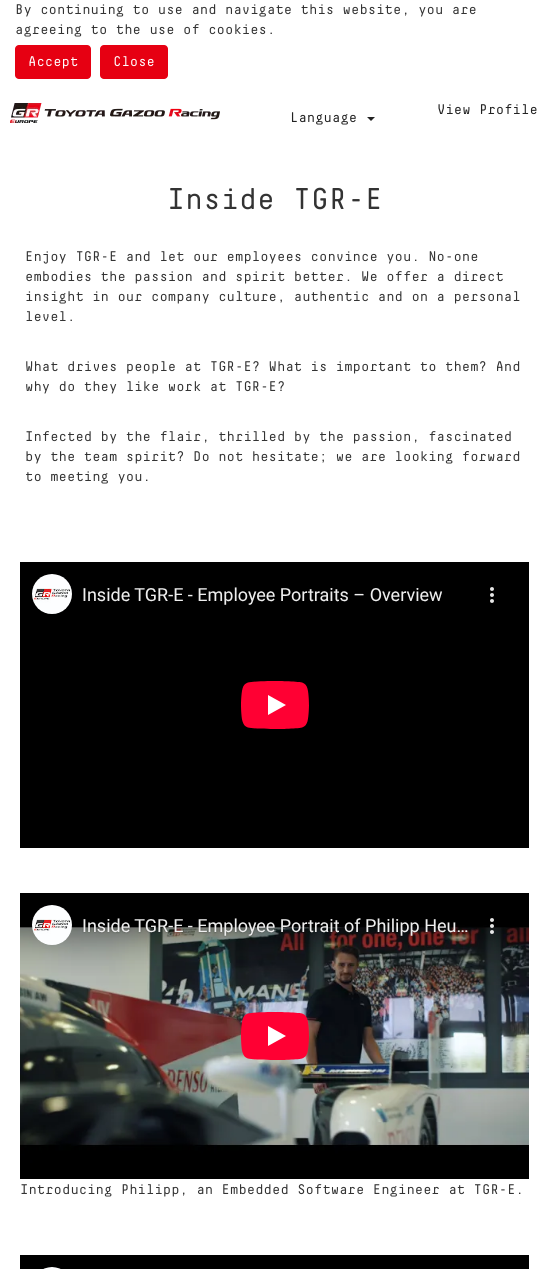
#include <cairo/cairo.h>
#include <math.h>
#include <stddef.h>

static cairo_t *cr;

static void use_color(int r, int g, int b) {
  cairo_set_source_rgb(cr, r / 255.0, g / 255.0, b / 255.0);
}

static void text(double x, double y, const char *s, const char *family, double size, int italic, int bold, int r, int g, int b) {
  cairo_select_font_face(cr, family, italic ? CAIRO_FONT_SLANT_ITALIC : CAIRO_FONT_SLANT_NORMAL,
    bold ? CAIRO_FONT_WEIGHT_BOLD : CAIRO_FONT_WEIGHT_NORMAL);
  cairo_set_font_size(cr, size);
  use_color(r, g, b);
  cairo_move_to(cr, x, y);
  cairo_show_text(cr, s);
}

static void round_rect(double x, double y, double w, double h, double r) {
  cairo_new_sub_path(cr);
  cairo_arc(cr, x + w - r, y + h - r, r, 0, M_PI / 2);
  cairo_arc(cr, x + r, y + h - r, r, M_PI / 2, M_PI);
  cairo_arc(cr, x + r, y + r, r, M_PI, 1.5 * M_PI);
  cairo_arc(cr, x + w - r, y + r, r, 1.5 * M_PI, 2 * M_PI);
  cairo_close_path(cr);
}

static void picture(const char *path, double x, double y, double w, double h) {
  cairo_surface_t *image = cairo_image_surface_create_from_png(path);
  cairo_save(cr);
  cairo_set_source_surface(cr, image, x, y);
  cairo_rectangle(cr, x, y, w, h);
  cairo_fill(cr);
  cairo_restore(cr);
  cairo_surface_destroy(image);
}

static void draw(void) {
  use_color(255, 255, 255);
  cairo_paint(cr);
  use_color(230, 0, 18);
  round_rect(15, 45, 76, 34, 4);
  cairo_fill(cr);
  round_rect(100, 45, 68, 34, 4);
  cairo_fill(cr);
  picture("img_01.png", 10, 103, 210, 20);
  use_color(34, 34, 34);
  cairo_new_path(cr);
  cairo_move_to(cr, 367, 117);
  cairo_line_to(cr, 375, 117);
  cairo_line_to(cr, 371, 121);
  cairo_close_path(cr);
  cairo_fill(cr);
  picture("img_02.png", 20, 562, 509, 286);
  picture("img_03.png", 20, 893, 509, 286);
  picture("img_04.png", 20, 1255, 509, 14);
  text(15, 14, "By continuing to use and navigate this website, you are", "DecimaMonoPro", 14, 0, 0, 51, 51, 51);
  text(15, 34, "agreeing to the use of cookies.", "DecimaMonoPro", 14, 0, 0, 51, 51, 51);
  text(28, 66, "Accept", "DecimaMonoPro", 14, 0, 0, 255, 255, 255);
  text(113, 66, "Close", "DecimaMonoPro", 14, 0, 0, 255, 255, 255);
  text(437, 114, "View Profile", "DecimaMonoPro", 14, 0, 0, 34, 34, 34);
  text(290, 122, "Language", "DecimaMonoPro", 14, 0, 0, 34, 34, 34);
  text(167, 209, "Inside TGR-E", "DecimaMonoPro", 30, 0, 0, 51, 51, 51);
  text(25, 261, "Enjoy TGR-E and let our employees convince you. No-one", "DecimaMonoPro", 14, 0, 0, 51, 51, 51);
  text(25, 281, "embodies the passion and spirit better. We offer a direct", "DecimaMonoPro", 14, 0, 0, 51, 51, 51);
  text(25, 301, "insight in our company culture, authentic and on a personal", "DecimaMonoPro", 14, 0, 0, 51, 51, 51);
  text(25, 321, "level.", "DecimaMonoPro", 14, 0, 0, 51, 51, 51);
  text(25, 371, "What drives people at TGR-E? What is important to them? And", "DecimaMonoPro", 14, 0, 0, 51, 51, 51);
  text(25, 391, "why do they like work at TGR-E?", "DecimaMonoPro", 14, 0, 0, 51, 51, 51);
  text(25, 441, "Infected by the flair, thrilled by the passion, fascinated", "DecimaMonoPro", 14, 0, 0, 51, 51, 51);
  text(25, 461, "by the team spirit? Do not hesitate; we are looking forward", "DecimaMonoPro", 14, 0, 0, 51, 51, 51);
  text(25, 481, "to meeting you.", "DecimaMonoPro", 14, 0, 0, 51, 51, 51);
  text(20, 1194, "Introducing Philipp, an Embedded Software Engineer at TGR-E.", "DecimaMonoPro", 14, 0, 0, 51, 51, 51);
}

int main(void) {
  cairo_surface_t *surface = cairo_image_surface_create(CAIRO_FORMAT_RGB24, 549, 1269);
  cr = cairo_create(surface);
  cairo_font_options_t *options = cairo_font_options_create();
  cairo_font_options_set_hint_metrics(options, CAIRO_HINT_METRICS_OFF);
  cairo_font_options_set_hint_style(options, CAIRO_HINT_STYLE_NONE);
  cairo_set_font_options(cr, options);
  cairo_set_miter_limit(cr, 4);
  draw();
  cairo_surface_write_to_png(surface, "out.png");
  cairo_font_options_destroy(options);
  cairo_destroy(cr);
  cairo_surface_destroy(surface);
  return 0;
}
